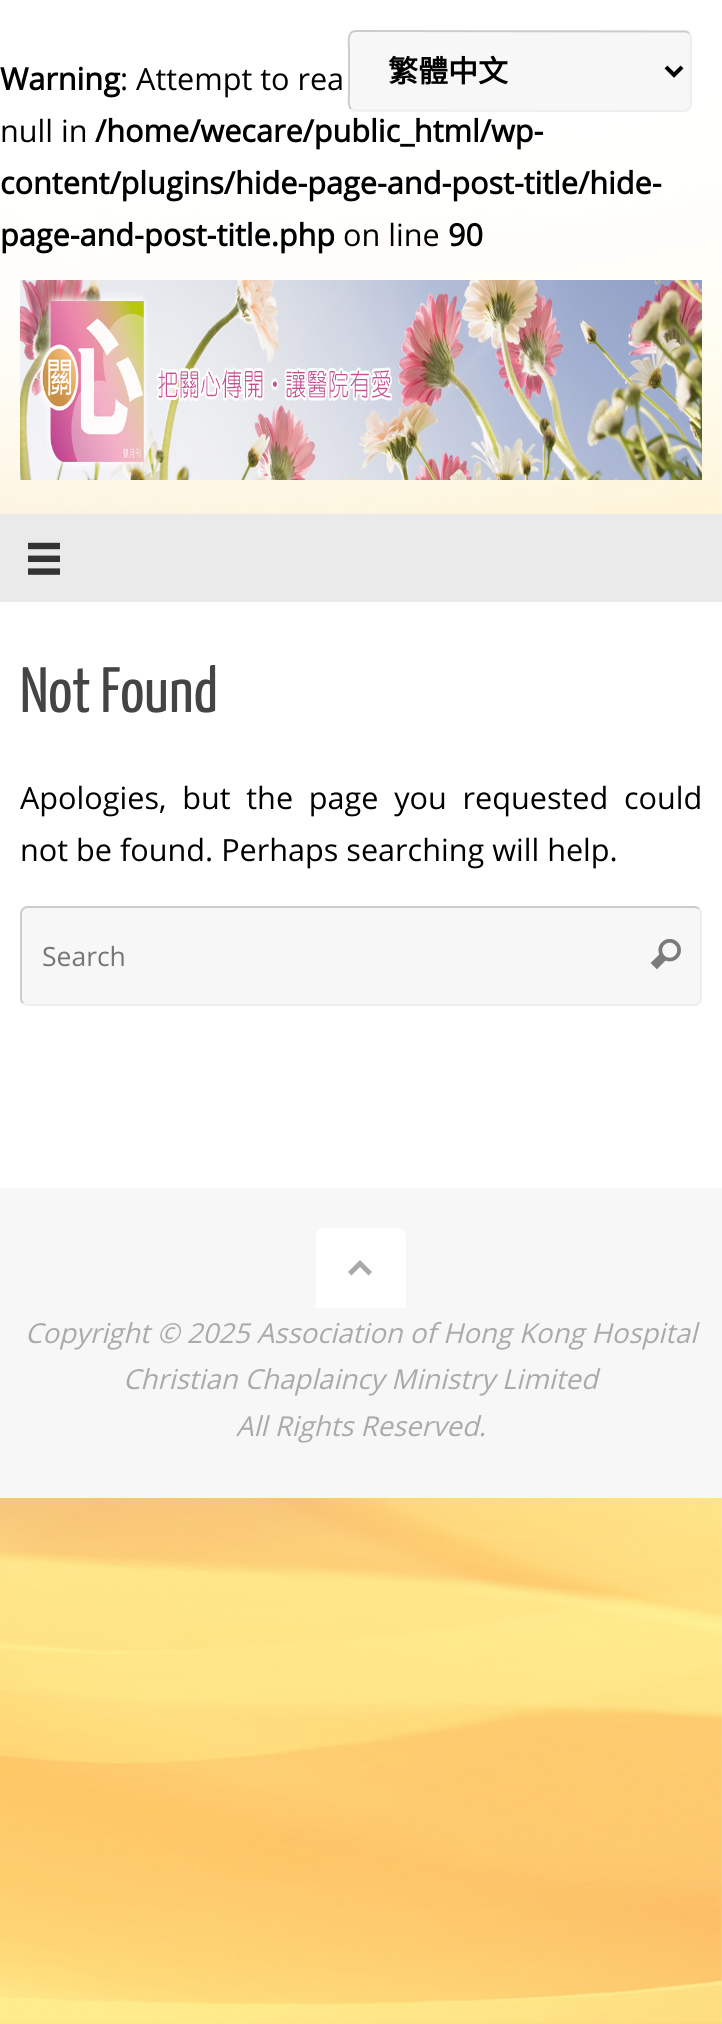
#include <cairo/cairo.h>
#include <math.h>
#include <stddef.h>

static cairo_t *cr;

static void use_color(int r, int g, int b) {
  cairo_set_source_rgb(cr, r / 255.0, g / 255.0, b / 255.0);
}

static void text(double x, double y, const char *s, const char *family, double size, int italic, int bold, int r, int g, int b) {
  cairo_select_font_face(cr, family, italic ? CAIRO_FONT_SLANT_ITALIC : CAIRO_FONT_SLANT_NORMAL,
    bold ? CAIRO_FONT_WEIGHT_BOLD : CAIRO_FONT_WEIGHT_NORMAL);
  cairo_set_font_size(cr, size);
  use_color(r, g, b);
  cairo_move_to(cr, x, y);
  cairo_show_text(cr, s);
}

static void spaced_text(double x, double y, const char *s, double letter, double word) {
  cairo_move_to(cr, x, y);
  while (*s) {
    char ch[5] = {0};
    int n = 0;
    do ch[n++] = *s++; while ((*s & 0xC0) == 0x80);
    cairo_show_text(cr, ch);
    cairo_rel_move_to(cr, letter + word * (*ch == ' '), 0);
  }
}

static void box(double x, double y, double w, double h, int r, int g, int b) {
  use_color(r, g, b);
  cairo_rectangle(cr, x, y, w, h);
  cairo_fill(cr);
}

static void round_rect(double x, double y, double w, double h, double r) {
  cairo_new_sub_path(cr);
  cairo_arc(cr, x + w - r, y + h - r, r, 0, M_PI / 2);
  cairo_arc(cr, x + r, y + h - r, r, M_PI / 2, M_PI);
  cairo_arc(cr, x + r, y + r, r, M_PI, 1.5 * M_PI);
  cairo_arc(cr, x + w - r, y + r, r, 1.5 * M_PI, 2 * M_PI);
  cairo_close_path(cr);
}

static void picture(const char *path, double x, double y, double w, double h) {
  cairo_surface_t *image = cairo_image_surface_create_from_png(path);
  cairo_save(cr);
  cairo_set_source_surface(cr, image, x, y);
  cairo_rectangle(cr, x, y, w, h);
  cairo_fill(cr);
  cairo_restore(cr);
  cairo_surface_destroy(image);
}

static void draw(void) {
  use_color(255, 255, 255);
  cairo_paint(cr);
  picture("img_01.png", 0, 0, 722, 2024);
  use_color(247, 247, 247);
  round_rect(348, 30, 344, 82, 8);
  cairo_fill(cr);
  cairo_new_path(cr);
  cairo_move_to(cr, 689, 33);
  cairo_curve_to(cr, 692.5, 37, 691, 45.5, 691, 49);
  cairo_line_to(cr, 691, 93);
  cairo_curve_to(cr, 691, 98.5, 693.5, 111, 684, 111);
  cairo_line_to(cr, 354, 110.5);
  cairo_line_to(cr, 351, 109);
  use_color(238, 238, 238);
  cairo_stroke(cr);
  cairo_new_path(cr);
  cairo_move_to(cr, 351, 109);
  cairo_curve_to(cr, 347.5, 105, 349, 96.5, 349, 93);
  cairo_line_to(cr, 349, 49);
  cairo_curve_to(cr, 349, 43.5, 346.5, 31, 356, 31);
  cairo_line_to(cr, 686, 31.5);
  cairo_line_to(cr, 689, 33);
  use_color(204, 204, 204);
  cairo_stroke(cr);
  cairo_new_path(cr);
  cairo_move_to(cr, 666, 67);
  cairo_line_to(cr, 674, 75);
  cairo_line_to(cr, 682, 67);
  use_color(0, 0, 0);
  cairo_set_line_width(cr, 4);
  cairo_stroke(cr);
  picture("img_02.png", 20, 280, 682, 200);
  box(0, 514, 722, 88, 234, 234, 234);
  picture("img_03.png", 28, 542, 32, 33);
  box(0, 602, 722, 586, 255, 255, 255);
  use_color(247, 247, 247);
  round_rect(20, 906, 682, 100, 8);
  cairo_fill(cr);
  cairo_new_path(cr);
  cairo_move_to(cr, 699, 909);
  cairo_curve_to(cr, 700.5, 910.5, 701, 912, 701, 914);
  cairo_line_to(cr, 701, 998);
  cairo_curve_to(cr, 701, 1000, 700.5, 1001.5, 699, 1003);
  cairo_curve_to(cr, 697.5, 1004.5, 696, 1005, 694, 1005);
  cairo_line_to(cr, 28, 1005);
  cairo_curve_to(cr, 26, 1005, 24.5, 1004.5, 23, 1003);
  use_color(238, 238, 238);
  cairo_set_line_width(cr, 2);
  cairo_stroke(cr);
  cairo_new_path(cr);
  cairo_move_to(cr, 23, 1003);
  cairo_curve_to(cr, 21.5, 1001.5, 21, 1000, 21, 998);
  cairo_line_to(cr, 21, 914);
  cairo_curve_to(cr, 21, 912, 21.5, 910.5, 23, 909);
  cairo_curve_to(cr, 24.5, 907.5, 26, 907, 28, 907);
  cairo_line_to(cr, 694, 907);
  cairo_curve_to(cr, 696, 907, 697.5, 907.5, 699, 909);
  use_color(204, 204, 204);
  cairo_stroke(cr);
  picture("img_04.png", 650, 938, 31, 32);
  box(0, 1188, 722, 310, 247, 247, 247);
  use_color(255, 255, 255);
  cairo_new_path(cr);
  cairo_move_to(cr, 324, 1228);
  cairo_line_to(cr, 398, 1228);
  cairo_curve_to(cr, 402.5, 1228, 406, 1231.5, 406, 1236);
  cairo_line_to(cr, 406, 1308);
  cairo_line_to(cr, 316, 1308);
  cairo_line_to(cr, 316, 1236);
  cairo_curve_to(cr, 316, 1231.5, 319.5, 1228, 324, 1228);
  cairo_close_path(cr);
  cairo_fill(cr);
  use_color(170, 170, 170);
  cairo_new_path(cr);
  cairo_move_to(cr, 348, 1272);
  cairo_line_to(cr, 360, 1260);
  cairo_line_to(cr, 372, 1272);
  cairo_line_to(cr, 368.5, 1275.5);
  cairo_line_to(cr, 360, 1267);
  cairo_line_to(cr, 351.5, 1275.5);
  cairo_close_path(cr);
  cairo_fill(cr);
  text(0, 90, "Warning", "Open Sans", 30.6, 0, 1, 0, 0, 0);
  text(120, 90, ": Attempt to rea", "Open Sans", 30.6, 0, 0, 0, 0, 0);
  text(388, 82, "繁體中文", "Noto Sans CJK HK", 30, 0, 1, 0, 0, 0);
  text(0, 142, "null in", "Open Sans", 30.6, 0, 0, 0, 0, 0);
  text(95, 142, "/home/wecare/public_html/wp-", "Open Sans", 30.6, 0, 1, 0, 0, 0);
  text(0, 194, "content/plugins/hide-page-and-post-title/hide-", "Open Sans", 30.6, 0, 1, 0, 0, 0);
  text(0, 246, "page-and-post-title.php", "Open Sans", 30.6, 0, 1, 0, 0, 0);
  text(343, 246, "on line", "Open Sans", 30.6, 0, 0, 0, 0, 0);
  text(448, 246, "90", "Open Sans", 30.6, 0, 1, 0, 0, 0);
  text(20, 712, "Not Found", "Yanone Kaffeesatz", 64, 0, 0, 68, 68, 68);
  cairo_select_font_face(cr, "Open Sans", CAIRO_FONT_SLANT_NORMAL, CAIRO_FONT_WEIGHT_NORMAL);
  cairo_set_font_size(cr, 30.6);
  use_color(0, 0, 0);
  spaced_text(20, 809, "Apologies, but the page you requested could", 0, 7.75);
  text(20, 861, "not be found. Perhaps searching will help.", "Open Sans", 30.6, 0, 0, 0, 0, 0);
  text(42, 966, "Search", "Open Sans", 26.5, 0, 0, 117, 117, 117);
  text(25, 1343, "Copyright © 2025 Association of Hong Kong Hospital", "Open Sans", 27.5, 1, 0, 170, 170, 170);
  text(123, 1389, "Christian Chaplaincy Ministry Limited", "Open Sans", 27.5, 1, 0, 170, 170, 170);
  text(236, 1436, "All Rights Reserved.", "Open Sans", 27.5, 1, 0, 170, 170, 170);
}

int main(void) {
  cairo_surface_t *surface = cairo_image_surface_create(CAIRO_FORMAT_RGB24, 722, 2024);
  cr = cairo_create(surface);
  cairo_font_options_t *options = cairo_font_options_create();
  cairo_font_options_set_hint_metrics(options, CAIRO_HINT_METRICS_OFF);
  cairo_font_options_set_hint_style(options, CAIRO_HINT_STYLE_NONE);
  cairo_set_font_options(cr, options);
  cairo_set_miter_limit(cr, 4);
  draw();
  cairo_surface_write_to_png(surface, "out.png");
  cairo_font_options_destroy(options);
  cairo_destroy(cr);
  cairo_surface_destroy(surface);
  return 0;
}
